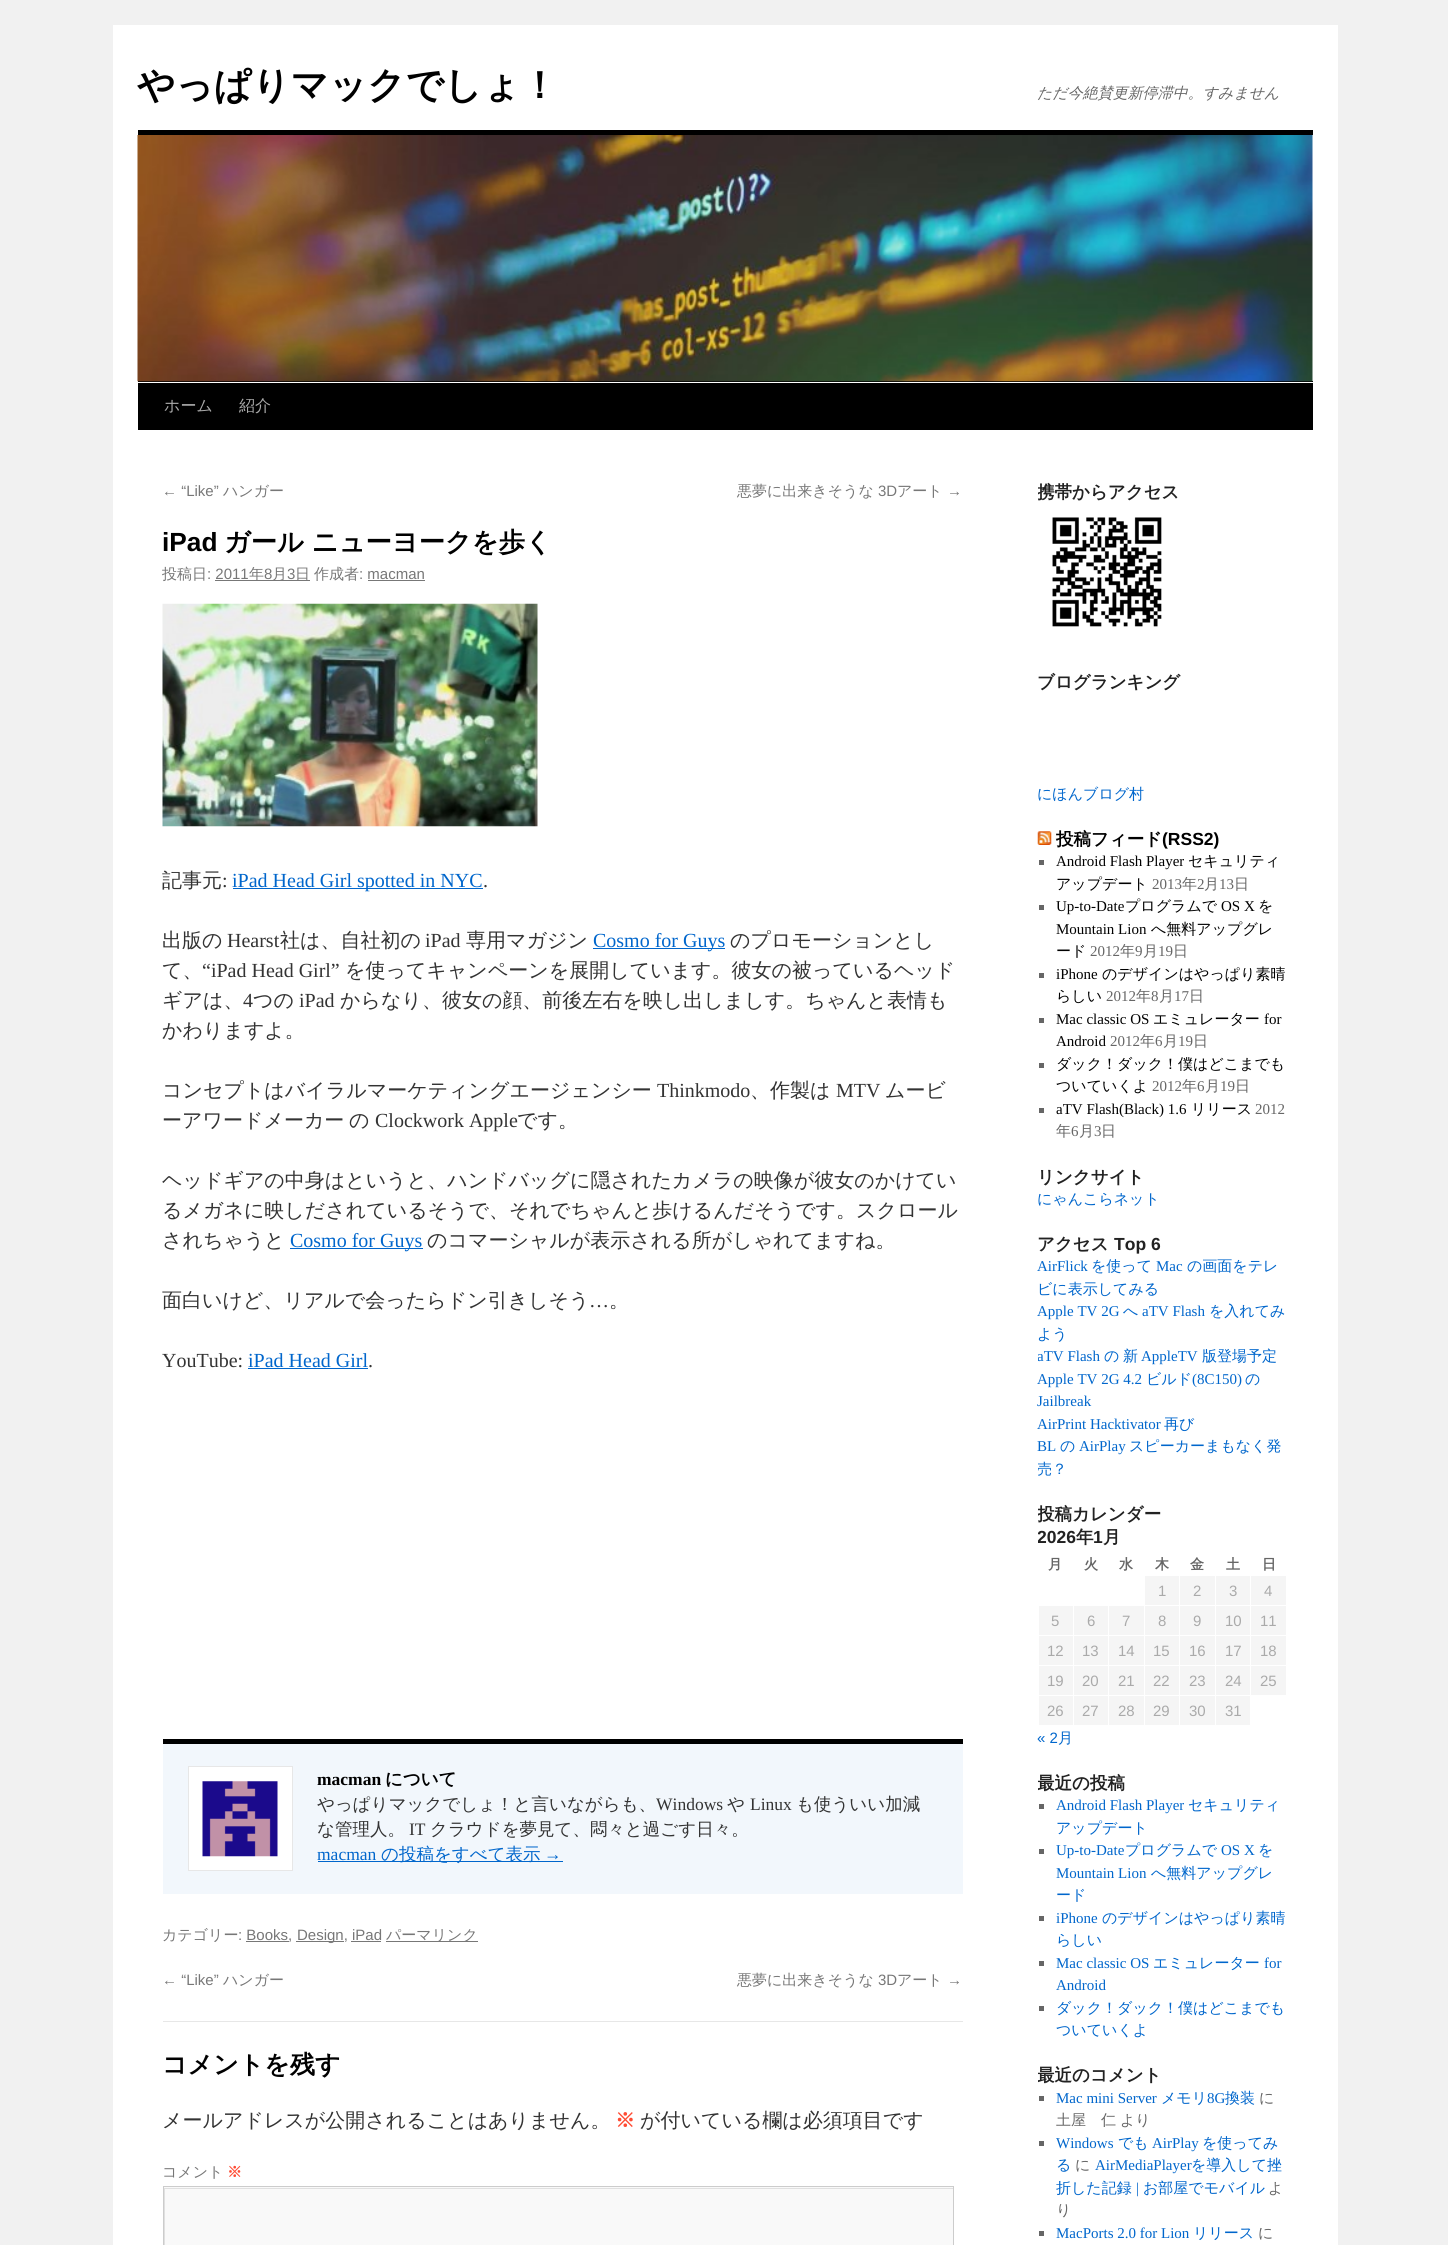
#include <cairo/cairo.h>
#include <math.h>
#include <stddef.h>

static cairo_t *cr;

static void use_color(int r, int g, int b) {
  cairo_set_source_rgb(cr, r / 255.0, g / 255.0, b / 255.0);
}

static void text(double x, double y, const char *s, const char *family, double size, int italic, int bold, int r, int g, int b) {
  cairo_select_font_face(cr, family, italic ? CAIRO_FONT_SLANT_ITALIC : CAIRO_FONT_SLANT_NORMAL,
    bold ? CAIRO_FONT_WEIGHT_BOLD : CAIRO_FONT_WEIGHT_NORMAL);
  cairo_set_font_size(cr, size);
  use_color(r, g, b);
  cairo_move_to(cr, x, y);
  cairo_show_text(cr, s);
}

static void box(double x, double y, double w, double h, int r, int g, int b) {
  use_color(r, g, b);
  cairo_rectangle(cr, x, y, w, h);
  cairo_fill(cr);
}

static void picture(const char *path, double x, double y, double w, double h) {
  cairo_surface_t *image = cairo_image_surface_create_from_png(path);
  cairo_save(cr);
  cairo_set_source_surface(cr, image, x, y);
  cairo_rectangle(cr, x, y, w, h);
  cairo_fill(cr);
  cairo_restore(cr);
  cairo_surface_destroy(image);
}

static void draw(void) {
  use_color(241, 241, 241);
  cairo_paint(cr);
  box(113, 25, 1225, 2220, 255, 255, 255);
  box(138, 130, 1175, 5, 0, 0, 0);
  box(138, 381, 1175, 1, 0, 0, 0);
  picture("img_01.png", 137, 135, 1176, 247);
  box(138, 383, 1175, 47, 0, 0, 0);
  box(215, 580, 95, 1, 119, 119, 119);
  box(368, 580, 57, 1, 119, 119, 119);
  picture("img_02.png", 162, 603, 376, 224);
  box(233, 888, 250, 1, 0, 102, 204);
  box(593, 948, 132, 1, 0, 102, 204);
  box(290, 1248, 133, 1, 0, 102, 204);
  box(248, 1368, 120, 1, 0, 102, 204);
  box(163, 1744, 800, 150, 242, 247, 252);
  box(163, 1739, 800, 5, 0, 0, 0);
  use_color(255, 255, 255);
  cairo_rectangle(cr, 188.5, 1766.5, 104, 104);
  cairo_fill_preserve(cr);
  use_color(231, 231, 231);
  cairo_set_line_width(cr, 1);
  cairo_stroke(cr);
  picture("img_03.png", 202, 1781, 76, 76);
  box(318, 1861, 245, 1, 0, 102, 204);
  box(296, 1941, 48, 1, 119, 119, 119);
  box(386, 1941, 92, 1, 119, 119, 119);
  box(246, 1941, 43, 1, 119, 119, 119);
  box(351, 1941, 30, 1, 119, 119, 119);
  box(163, 2021, 800, 1, 231, 231, 231);
  box(164, 2187, 789, 58, 249, 249, 249);
  cairo_save(cr);
  cairo_rectangle(cr, 164, 2188, 789, 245);
  cairo_clip(cr);
  use_color(224, 224, 224);
  cairo_set_fill_rule(cr, CAIRO_FILL_RULE_EVEN_ODD);
  cairo_new_path(cr);
  cairo_move_to(cr, 40, 2064);
  cairo_line_to(cr, 1076, 2064);
  cairo_line_to(cr, 1076, 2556);
  cairo_line_to(cr, 40, 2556);
  cairo_close_path(cr);
  cairo_move_to(cr, 165, 2189);
  cairo_line_to(cr, 954, 2189);
  cairo_line_to(cr, 954, 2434);
  cairo_line_to(cr, 165, 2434);
  cairo_close_path(cr);
  cairo_fill(cr);
  cairo_restore(cr);
  cairo_rectangle(cr, 163.5, 2186.5, 790, 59);
  use_color(204, 204, 204);
  cairo_stroke(cr);
  picture("img_04.png", 1052, 517, 110, 110);
  picture("img_05.png", 1037, 831, 15, 14);
  box(1039, 860, 5, 5, 102, 102, 102);
  box(1039, 905, 5, 5, 102, 102, 102);
  box(1039, 973, 5, 5, 102, 102, 102);
  box(1039, 1018, 5, 5, 102, 102, 102);
  box(1039, 1063, 5, 5, 102, 102, 102);
  box(1039, 1108, 5, 5, 102, 102, 102);
  box(1145, 1576, 34, 29, 245, 245, 245);
  box(1180, 1576, 35, 29, 245, 245, 245);
  box(1216, 1576, 34, 29, 245, 245, 245);
  box(1251, 1576, 35, 29, 245, 245, 245);
  box(1039, 1606, 34, 29, 245, 245, 245);
  box(1074, 1606, 34, 29, 245, 245, 245);
  box(1109, 1606, 35, 29, 245, 245, 245);
  box(1145, 1606, 34, 29, 245, 245, 245);
  box(1180, 1606, 35, 29, 245, 245, 245);
  box(1216, 1606, 34, 29, 245, 245, 245);
  box(1251, 1606, 35, 29, 245, 245, 245);
  box(1039, 1636, 34, 29, 245, 245, 245);
  box(1074, 1636, 34, 29, 245, 245, 245);
  box(1109, 1636, 35, 29, 245, 245, 245);
  box(1145, 1636, 34, 29, 245, 245, 245);
  box(1180, 1636, 35, 29, 245, 245, 245);
  box(1216, 1636, 34, 29, 245, 245, 245);
  box(1251, 1636, 35, 29, 245, 245, 245);
  box(1039, 1666, 34, 29, 245, 245, 245);
  box(1074, 1666, 34, 29, 245, 245, 245);
  box(1109, 1666, 35, 29, 245, 245, 245);
  box(1145, 1666, 34, 29, 245, 245, 245);
  box(1180, 1666, 35, 29, 245, 245, 245);
  box(1216, 1666, 34, 29, 245, 245, 245);
  box(1251, 1666, 35, 29, 245, 245, 245);
  box(1039, 1696, 34, 29, 245, 245, 245);
  box(1074, 1696, 34, 29, 245, 245, 245);
  box(1109, 1696, 35, 29, 245, 245, 245);
  box(1145, 1696, 34, 29, 245, 245, 245);
  box(1180, 1696, 35, 29, 245, 245, 245);
  box(1216, 1696, 34, 29, 245, 245, 245);
  box(1039, 1804, 5, 5, 102, 102, 102);
  box(1039, 1849, 5, 5, 102, 102, 102);
  box(1039, 1916, 5, 5, 102, 102, 102);
  box(1039, 1961, 5, 5, 102, 102, 102);
  box(1039, 2006, 5, 5, 102, 102, 102);
  box(1039, 2096, 5, 5, 102, 102, 102);
  box(1039, 2141, 5, 5, 102, 102, 102);
  box(1039, 2231, 5, 5, 102, 102, 102);
  text(137, 98, "やっぱりマックでしょ！", "WenQuanYi Zen Hei", 37.5, 0, 1, 0, 0, 0);
  text(1037, 98, "ただ今絶賛更新停滞中。すみません", "WenQuanYi Zen Hei Medium", 15, 1, 0, 102, 102, 102);
  text(164, 411, "ホーム", "WenQuanYi Zen Hei Medium", 16, 0, 0, 170, 170, 170);
  text(239, 411, "紹介", "WenQuanYi Zen Hei Medium", 16, 0, 0, 170, 170, 170);
  text(162, 496, "← “Like”", "Liberation Sans", 15, 0, 0, 119, 119, 119);
  text(223, 496, "ハンガー", "WenQuanYi Zen Hei Medium", 15, 0, 0, 119, 119, 119);
  text(737, 496, "悪夢に出来きそうな", "WenQuanYi Zen Hei Medium", 15, 0, 0, 119, 119, 119);
  text(878, 496, "3D", "Liberation Sans", 15, 0, 0, 119, 119, 119);
  text(897, 496, "アート", "WenQuanYi Zen Hei Medium", 15, 0, 0, 119, 119, 119);
  text(947, 496, "→", "Liberation Sans", 15, 0, 0, 119, 119, 119);
  text(162, 551, "iPad", "Liberation Sans", 26.25, 0, 1, 0, 0, 0);
  text(224, 551, "ガール ニューヨークを歩く", "WenQuanYi Zen Hei", 26.25, 0, 1, 0, 0, 0);
  text(162, 579, "投稿日", "WenQuanYi Zen Hei Medium", 15, 0, 0, 119, 119, 119);
  text(207, 579, ": 2011", "Liberation Sans", 15, 0, 0, 119, 119, 119);
  text(249, 579, "年", "WenQuanYi Zen Hei Medium", 15, 0, 0, 119, 119, 119);
  text(264, 579, "8", "Liberation Sans", 15, 0, 0, 119, 119, 119);
  text(272, 579, "月", "WenQuanYi Zen Hei Medium", 15, 0, 0, 119, 119, 119);
  text(287, 579, "3", "Liberation Sans", 15, 0, 0, 119, 119, 119);
  text(295, 579, "日", "WenQuanYi Zen Hei Medium", 15, 0, 0, 119, 119, 119);
  text(314, 579, "作成者", "WenQuanYi Zen Hei Medium", 15, 0, 0, 119, 119, 119);
  text(359, 579, ": macman", "Liberation Sans", 15, 0, 0, 119, 119, 119);
  text(162, 887, "記事元", "WenQuanYi Zen Hei Medium", 20, 0, 0, 51, 51, 51);
  text(222, 887, ":", "Liberation Serif", 20, 0, 0, 51, 51, 51);
  text(232, 887, "iPad Head Girl spotted in NYC", "Liberation Serif", 20, 0, 0, 0, 102, 204);
  text(483, 887, ".", "Liberation Serif", 20, 0, 0, 51, 51, 51);
  text(162, 947, "出版の", "WenQuanYi Zen Hei Medium", 20, 0, 0, 51, 51, 51);
  text(227, 947, "Hearst", "Liberation Serif", 20, 0, 0, 51, 51, 51);
  text(280, 947, "社は、自社初の", "WenQuanYi Zen Hei Medium", 20, 0, 0, 51, 51, 51);
  text(425, 947, "iPad", "Liberation Serif", 20, 0, 0, 51, 51, 51);
  text(466, 947, "専用マガジン", "WenQuanYi Zen Hei Medium", 20, 0, 0, 51, 51, 51);
  text(593, 947, "Cosmo for Guys", "Liberation Serif", 20, 0, 0, 0, 102, 204);
  text(730, 947, "のプロモーションとし", "WenQuanYi Zen Hei Medium", 20, 0, 0, 51, 51, 51);
  text(162, 977, "て、", "WenQuanYi Zen Hei Medium", 20, 0, 0, 51, 51, 51);
  text(202, 977, "“iPad Head Girl”", "Liberation Serif", 20, 0, 0, 51, 51, 51);
  text(345, 977, "を使ってキャンペーンを展開しています。彼女の被っているヘッド", "WenQuanYi Zen Hei Medium", 20, 0, 0, 51, 51, 51);
  text(162, 1007, "ギアは、", "WenQuanYi Zen Hei Medium", 20, 0, 0, 51, 51, 51);
  text(243, 1007, "4", "Liberation Serif", 20, 0, 0, 51, 51, 51);
  text(253, 1007, "つの", "WenQuanYi Zen Hei Medium", 20, 0, 0, 51, 51, 51);
  text(299, 1007, "iPad", "Liberation Serif", 20, 0, 0, 51, 51, 51);
  text(340, 1007, "からなり、彼女の顔、前後左右を映し出しましす。ちゃんと表情も", "WenQuanYi Zen Hei Medium", 20, 0, 0, 51, 51, 51);
  text(162, 1037, "かわりますよ。", "WenQuanYi Zen Hei Medium", 20, 0, 0, 51, 51, 51);
  text(162, 1097, "コンセプトはバイラルマーケティングエージェンシー", "WenQuanYi Zen Hei Medium", 20, 0, 0, 51, 51, 51);
  text(657, 1097, "Thinkmodo", "Liberation Serif", 20, 0, 0, 51, 51, 51);
  text(750, 1097, "、作製は", "WenQuanYi Zen Hei Medium", 20, 0, 0, 51, 51, 51);
  text(836, 1097, "MTV", "Liberation Serif", 20, 0, 0, 51, 51, 51);
  text(885, 1097, "ムービ", "WenQuanYi Zen Hei Medium", 20, 0, 0, 51, 51, 51);
  text(162, 1127, "ーアワードメーカー", "WenQuanYi Zen Hei Medium", 20, 0, 0, 51, 51, 51);
  text(349, 1127, "の", "WenQuanYi Zen Hei Medium", 20, 0, 0, 51, 51, 51);
  text(375, 1127, "Clockwork Apple", "Liberation Serif", 20, 0, 0, 51, 51, 51);
  text(517, 1127, "です。", "WenQuanYi Zen Hei Medium", 20, 0, 0, 51, 51, 51);
  text(162, 1187, "ヘッドギアの中身はというと、ハンドバッグに隠されたカメラの映像が彼女のかけてい", "WenQuanYi Zen Hei Medium", 20, 0, 0, 51, 51, 51);
  text(162, 1217, "るメガネに映しだされているそうで、それでちゃんと歩けるんだそうです。スクロール", "WenQuanYi Zen Hei Medium", 20, 0, 0, 51, 51, 51);
  text(162, 1247, "されちゃうと", "WenQuanYi Zen Hei Medium", 20, 0, 0, 51, 51, 51);
  text(290, 1247, "Cosmo for Guys", "Liberation Serif", 20, 0, 0, 0, 102, 204);
  text(427, 1247, "のコマーシャルが表示される所がしゃれてますね。", "WenQuanYi Zen Hei Medium", 20, 0, 0, 51, 51, 51);
  text(162, 1307, "面白いけど、リアルで会ったらドン引きしそう", "WenQuanYi Zen Hei Medium", 20, 0, 0, 51, 51, 51);
  text(589, 1307, "…", "Liberation Serif", 20, 0, 0, 51, 51, 51);
  text(609, 1307, "。", "WenQuanYi Zen Hei Medium", 20, 0, 0, 51, 51, 51);
  text(162, 1367, "YouTube:", "Liberation Serif", 20, 0, 0, 51, 51, 51);
  text(248, 1367, "iPad Head Girl", "Liberation Serif", 20, 0, 0, 0, 102, 204);
  text(368, 1367, ".", "Liberation Serif", 20, 0, 0, 51, 51, 51);
  text(317, 1785, "macman", "Liberation Serif", 17.5, 0, 1, 0, 0, 0);
  text(385, 1785, "について", "WenQuanYi Zen Hei", 17.5, 0, 1, 0, 0, 0);
  text(317, 1810, "やっぱりマックでしょ！と言いながらも、", "WenQuanYi Zen Hei Medium", 17.5, 0, 0, 51, 51, 51);
  text(656, 1810, "Windows", "Liberation Serif", 17.5, 0, 0, 51, 51, 51);
  text(727, 1810, "や", "WenQuanYi Zen Hei Medium", 17.5, 0, 0, 51, 51, 51);
  text(750, 1810, "Linux", "Liberation Serif", 17.5, 0, 0, 51, 51, 51);
  text(796, 1810, "も使ういい加減", "WenQuanYi Zen Hei Medium", 17.5, 0, 0, 51, 51, 51);
  text(317, 1835, "な管理人。", "WenQuanYi Zen Hei Medium", 17.5, 0, 0, 51, 51, 51);
  text(409, 1835, "IT", "Liberation Serif", 17.5, 0, 0, 51, 51, 51);
  text(430, 1835, "クラウドを夢見て、悶々と過ごす日々。", "WenQuanYi Zen Hei Medium", 17.5, 0, 0, 51, 51, 51);
  text(317, 1860, "macman", "Liberation Serif", 17.5, 0, 0, 0, 102, 204);
  text(381, 1860, "の投稿をすべて表示", "WenQuanYi Zen Hei Medium", 17.5, 0, 0, 0, 102, 204);
  text(544, 1860, "→", "Liberation Serif", 17.5, 0, 0, 0, 102, 204);
  text(162, 1940, "カテゴリー", "WenQuanYi Zen Hei Medium", 15, 0, 0, 119, 119, 119);
  text(238, 1940, ": Books,", "Liberation Sans", 15, 0, 0, 119, 119, 119);
  text(297, 1940, "Design, iPad", "Liberation Sans", 15, 0, 0, 119, 119, 119);
  text(386, 1940, "パーマリンク", "WenQuanYi Zen Hei Medium", 15, 0, 0, 119, 119, 119);
  text(162, 1985, "← “Like”", "Liberation Sans", 15, 0, 0, 119, 119, 119);
  text(223, 1985, "ハンガー", "WenQuanYi Zen Hei Medium", 15, 0, 0, 119, 119, 119);
  text(737, 1985, "悪夢に出来きそうな", "WenQuanYi Zen Hei Medium", 15, 0, 0, 119, 119, 119);
  text(878, 1985, "3D", "Liberation Sans", 15, 0, 0, 119, 119, 119);
  text(897, 1985, "アート", "WenQuanYi Zen Hei Medium", 15, 0, 0, 119, 119, 119);
  text(947, 1985, "→", "Liberation Sans", 15, 0, 0, 119, 119, 119);
  text(162, 2073, "コメントを残す", "WenQuanYi Zen Hei", 25, 0, 1, 0, 0, 0);
  text(162, 2127, "メールアドレスが公開されることはありません。", "WenQuanYi Zen Hei Medium", 20, 0, 0, 51, 51, 51);
  text(615, 2127, "※", "WenQuanYi Zen Hei", 20, 0, 1, 255, 75, 51);
  text(640, 2127, "が付いている欄は必須項目です", "WenQuanYi Zen Hei Medium", 20, 0, 0, 51, 51, 51);
  text(162, 2177, "コメント", "WenQuanYi Zen Hei Medium", 15, 0, 0, 119, 119, 119);
  text(227, 2177, "※", "WenQuanYi Zen Hei", 15, 0, 1, 255, 75, 51);
  cairo_save(cr);
  cairo_rectangle(cr, 1038, 480, 275, 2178);
  cairo_clip(cr);
  text(1037, 498, "携帯からアクセス", "WenQuanYi Zen Hei", 17.5, 0, 1, 34, 34, 34);
  cairo_restore(cr);
  text(1037, 688, "ブログランキング", "WenQuanYi Zen Hei", 17.5, 0, 1, 34, 34, 34);
  text(1037, 799, "にほんブログ村", "WenQuanYi Zen Hei Medium", 15, 0, 0, 0, 102, 204);
  text(1056, 845, "投稿フィード", "WenQuanYi Zen Hei", 17.5, 0, 1, 0, 0, 0);
  text(1162, 845, "(RSS2)", "Liberation Sans", 17.5, 0, 1, 0, 0, 0);
  text(1056, 866, "Android Flash Player", "Liberation Serif", 15, 0, 0, 0, 0, 0);
  text(1188, 866, "セキュリティ", "WenQuanYi Zen Hei Medium", 15, 0, 0, 0, 0, 0);
  text(1056, 889, "アップデート", "WenQuanYi Zen Hei Medium", 15, 0, 0, 0, 0, 0);
  text(1152, 889, "2013", "Liberation Serif", 15, 0, 0, 102, 102, 102);
  text(1182, 889, "年", "WenQuanYi Zen Hei Medium", 15, 0, 0, 102, 102, 102);
  text(1197, 889, "2", "Liberation Serif", 15, 0, 0, 102, 102, 102);
  text(1204, 889, "月", "WenQuanYi Zen Hei Medium", 15, 0, 0, 102, 102, 102);
  text(1219, 889, "13", "Liberation Serif", 15, 0, 0, 102, 102, 102);
  text(1234, 889, "日", "WenQuanYi Zen Hei Medium", 15, 0, 0, 102, 102, 102);
  text(1056, 911, "Up-to-Date", "Liberation Serif", 15, 0, 0, 0, 0, 0);
  text(1125, 911, "プログラムで", "WenQuanYi Zen Hei Medium", 15, 0, 0, 0, 0, 0);
  text(1221, 911, "OS X", "Liberation Serif", 15, 0, 0, 0, 0, 0);
  text(1258, 911, "を", "WenQuanYi Zen Hei Medium", 15, 0, 0, 0, 0, 0);
  text(1056, 934, "Mountain Lion", "Liberation Serif", 15, 0, 0, 0, 0, 0);
  text(1151, 934, "へ無料アップグレ", "WenQuanYi Zen Hei Medium", 15, 0, 0, 0, 0, 0);
  text(1056, 956, "ード", "WenQuanYi Zen Hei Medium", 15, 0, 0, 0, 0, 0);
  text(1090, 956, "2012", "Liberation Serif", 15, 0, 0, 102, 102, 102);
  text(1120, 956, "年", "WenQuanYi Zen Hei Medium", 15, 0, 0, 102, 102, 102);
  text(1135, 956, "9", "Liberation Serif", 15, 0, 0, 102, 102, 102);
  text(1143, 956, "月", "WenQuanYi Zen Hei Medium", 15, 0, 0, 102, 102, 102);
  text(1158, 956, "19", "Liberation Serif", 15, 0, 0, 102, 102, 102);
  text(1173, 956, "日", "WenQuanYi Zen Hei Medium", 15, 0, 0, 102, 102, 102);
  text(1056, 979, "iPhone", "Liberation Serif", 15, 0, 0, 0, 0, 0);
  text(1102, 979, "のデザインはやっぱり素晴", "WenQuanYi Zen Hei Medium", 15, 0, 0, 0, 0, 0);
  text(1056, 1001, "らしい", "WenQuanYi Zen Hei Medium", 15, 0, 0, 0, 0, 0);
  text(1106, 1001, "2012", "Liberation Serif", 15, 0, 0, 102, 102, 102);
  text(1136, 1001, "年", "WenQuanYi Zen Hei Medium", 15, 0, 0, 102, 102, 102);
  text(1151, 1001, "8", "Liberation Serif", 15, 0, 0, 102, 102, 102);
  text(1159, 1001, "月", "WenQuanYi Zen Hei Medium", 15, 0, 0, 102, 102, 102);
  text(1174, 1001, "17", "Liberation Serif", 15, 0, 0, 102, 102, 102);
  text(1189, 1001, "日", "WenQuanYi Zen Hei Medium", 15, 0, 0, 102, 102, 102);
  text(1056, 1024, "Mac classic OS", "Liberation Serif", 15, 0, 0, 0, 0, 0);
  text(1153, 1024, "エミュレーター", "WenQuanYi Zen Hei Medium", 15, 0, 0, 0, 0, 0);
  text(1264, 1024, "for", "Liberation Serif", 15, 0, 0, 0, 0, 0);
  text(1056, 1046, "Android", "Liberation Serif", 15, 0, 0, 0, 0, 0);
  text(1110, 1046, "2012", "Liberation Serif", 15, 0, 0, 102, 102, 102);
  text(1140, 1046, "年", "WenQuanYi Zen Hei Medium", 15, 0, 0, 102, 102, 102);
  text(1155, 1046, "6", "Liberation Serif", 15, 0, 0, 102, 102, 102);
  text(1163, 1046, "月", "WenQuanYi Zen Hei Medium", 15, 0, 0, 102, 102, 102);
  text(1178, 1046, "19", "Liberation Serif", 15, 0, 0, 102, 102, 102);
  text(1193, 1046, "日", "WenQuanYi Zen Hei Medium", 15, 0, 0, 102, 102, 102);
  text(1056, 1069, "ダック！ダック！僕はどこまでも", "WenQuanYi Zen Hei Medium", 15, 0, 0, 0, 0, 0);
  text(1056, 1091, "ついていくよ", "WenQuanYi Zen Hei Medium", 15, 0, 0, 0, 0, 0);
  text(1152, 1091, "2012", "Liberation Serif", 15, 0, 0, 102, 102, 102);
  text(1182, 1091, "年", "WenQuanYi Zen Hei Medium", 15, 0, 0, 102, 102, 102);
  text(1197, 1091, "6", "Liberation Serif", 15, 0, 0, 102, 102, 102);
  text(1205, 1091, "月", "WenQuanYi Zen Hei Medium", 15, 0, 0, 102, 102, 102);
  text(1220, 1091, "19", "Liberation Serif", 15, 0, 0, 102, 102, 102);
  text(1235, 1091, "日", "WenQuanYi Zen Hei Medium", 15, 0, 0, 102, 102, 102);
  text(1056, 1114, "aTV Flash(Black) 1.6", "Liberation Serif", 15, 0, 0, 0, 0, 0);
  text(1191, 1114, "リリース", "WenQuanYi Zen Hei Medium", 15, 0, 0, 0, 0, 0);
  text(1255, 1114, "2012", "Liberation Serif", 15, 0, 0, 102, 102, 102);
  text(1056, 1136, "年", "WenQuanYi Zen Hei Medium", 15, 0, 0, 102, 102, 102);
  text(1071, 1136, "6", "Liberation Serif", 15, 0, 0, 102, 102, 102);
  text(1079, 1136, "月", "WenQuanYi Zen Hei Medium", 15, 0, 0, 102, 102, 102);
  text(1094, 1136, "3", "Liberation Serif", 15, 0, 0, 102, 102, 102);
  text(1101, 1136, "日", "WenQuanYi Zen Hei Medium", 15, 0, 0, 102, 102, 102);
  text(1037, 1183, "リンクサイト", "WenQuanYi Zen Hei", 17.5, 0, 1, 34, 34, 34);
  text(1037, 1204, "にゃんこらネット", "WenQuanYi Zen Hei Medium", 15, 0, 0, 0, 102, 204);
  text(1037, 1250, "アクセス", "WenQuanYi Zen Hei", 17.5, 0, 1, 34, 34, 34);
  text(1114, 1250, "Top 6", "Liberation Sans", 17.5, 0, 1, 34, 34, 34);
  text(1037, 1271, "AirFlick", "Liberation Serif", 15, 0, 0, 0, 102, 204);
  text(1091, 1271, "を使って", "WenQuanYi Zen Hei Medium", 15, 0, 0, 0, 102, 204);
  text(1156, 1271, "Mac", "Liberation Serif", 15, 0, 0, 0, 102, 204);
  text(1187, 1271, "の画面をテレ", "WenQuanYi Zen Hei Medium", 15, 0, 0, 0, 102, 204);
  text(1037, 1294, "ビに表示してみる", "WenQuanYi Zen Hei Medium", 15, 0, 0, 0, 102, 204);
  text(1037, 1316, "Apple TV 2G", "Liberation Serif", 15, 0, 0, 0, 102, 204);
  text(1123, 1316, "へ", "WenQuanYi Zen Hei Medium", 15, 0, 0, 0, 102, 204);
  text(1142, 1316, "aTV Flash", "Liberation Serif", 15, 0, 0, 0, 102, 204);
  text(1209, 1316, "を入れてみ", "WenQuanYi Zen Hei Medium", 15, 0, 0, 0, 102, 204);
  text(1037, 1339, "よう", "WenQuanYi Zen Hei Medium", 15, 0, 0, 0, 102, 204);
  cairo_save(cr);
  cairo_rectangle(cr, 1038, 480, 275, 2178);
  cairo_clip(cr);
  text(1037, 1361, "aTV Flash", "Liberation Serif", 15, 0, 0, 0, 102, 204);
  cairo_restore(cr);
  text(1104, 1361, "の", "WenQuanYi Zen Hei Medium", 15, 0, 0, 0, 102, 204);
  text(1123, 1361, "新", "WenQuanYi Zen Hei Medium", 15, 0, 0, 0, 102, 204);
  text(1141, 1361, "AppleTV", "Liberation Serif", 15, 0, 0, 0, 102, 204);
  text(1202, 1361, "版登場予定", "WenQuanYi Zen Hei Medium", 15, 0, 0, 0, 102, 204);
  text(1037, 1384, "Apple TV 2G 4.2", "Liberation Serif", 15, 0, 0, 0, 102, 204);
  text(1146, 1384, "ビルド", "WenQuanYi Zen Hei Medium", 15, 0, 0, 0, 102, 204);
  text(1192, 1384, "(8C150)", "Liberation Serif", 15, 0, 0, 0, 102, 204);
  text(1245, 1384, "の", "WenQuanYi Zen Hei Medium", 15, 0, 0, 0, 102, 204);
  text(1037, 1406, "Jailbreak", "Liberation Serif", 15, 0, 0, 0, 102, 204);
  text(1037, 1429, "AirPrint Hacktivator", "Liberation Serif", 15, 0, 0, 0, 102, 204);
  text(1164, 1429, "再び", "WenQuanYi Zen Hei Medium", 15, 0, 0, 0, 102, 204);
  text(1037, 1451, "BL", "Liberation Serif", 15, 0, 0, 0, 102, 204);
  text(1060, 1451, "の", "WenQuanYi Zen Hei Medium", 15, 0, 0, 0, 102, 204);
  text(1079, 1451, "AirPlay", "Liberation Serif", 15, 0, 0, 0, 102, 204);
  text(1129, 1451, "スピーカーまもなく発", "WenQuanYi Zen Hei Medium", 15, 0, 0, 0, 102, 204);
  cairo_save(cr);
  cairo_rectangle(cr, 1038, 480, 275, 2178);
  cairo_clip(cr);
  text(1037, 1474, "売？", "WenQuanYi Zen Hei Medium", 15, 0, 0, 0, 102, 204);
  text(1037, 1520, "投稿カレンダー", "WenQuanYi Zen Hei", 17.5, 0, 1, 34, 34, 34);
  text(1037, 1543, "2026", "Liberation Sans", 17.5, 0, 1, 34, 34, 34);
  cairo_restore(cr);
  text(1076, 1543, "年", "WenQuanYi Zen Hei", 17.5, 0, 1, 34, 34, 34);
  text(1093, 1543, "1", "Liberation Sans", 17.5, 0, 1, 34, 34, 34);
  text(1103, 1543, "月", "WenQuanYi Zen Hei", 17.5, 0, 1, 34, 34, 34);
  text(1048, 1569, "月", "WenQuanYi Zen Hei", 14, 0, 1, 102, 102, 102);
  text(1084, 1569, "火", "WenQuanYi Zen Hei", 14, 0, 1, 102, 102, 102);
  text(1119, 1569, "水", "WenQuanYi Zen Hei", 14, 0, 1, 102, 102, 102);
  text(1155, 1569, "木", "WenQuanYi Zen Hei", 14, 0, 1, 102, 102, 102);
  text(1190, 1569, "金", "WenQuanYi Zen Hei", 14, 0, 1, 102, 102, 102);
  text(1226, 1569, "土", "WenQuanYi Zen Hei", 14, 0, 1, 102, 102, 102);
  text(1262, 1569, "日", "WenQuanYi Zen Hei", 14, 0, 1, 102, 102, 102);
  text(1158, 1596, "1", "Liberation Sans", 15, 0, 0, 170, 170, 170);
  text(1193, 1596, "2", "Liberation Sans", 15, 0, 0, 170, 170, 170);
  text(1229, 1596, "3", "Liberation Sans", 15, 0, 0, 170, 170, 170);
  text(1264, 1596, "4", "Liberation Sans", 15, 0, 0, 170, 170, 170);
  text(1051, 1626, "5", "Liberation Sans", 15, 0, 0, 170, 170, 170);
  text(1087, 1626, "6", "Liberation Sans", 15, 0, 0, 170, 170, 170);
  text(1122, 1626, "7", "Liberation Sans", 15, 0, 0, 170, 170, 170);
  text(1158, 1626, "8", "Liberation Sans", 15, 0, 0, 170, 170, 170);
  text(1193, 1626, "9", "Liberation Sans", 15, 0, 0, 170, 170, 170);
  text(1225, 1626, "10", "Liberation Sans", 15, 0, 0, 170, 170, 170);
  text(1260, 1626, "11", "Liberation Sans", 15, 0, 0, 170, 170, 170);
  text(1047, 1656, "12", "Liberation Sans", 15, 0, 0, 170, 170, 170);
  text(1082, 1656, "13", "Liberation Sans", 15, 0, 0, 170, 170, 170);
  text(1118, 1656, "14", "Liberation Sans", 15, 0, 0, 170, 170, 170);
  text(1153, 1656, "15", "Liberation Sans", 15, 0, 0, 170, 170, 170);
  text(1189, 1656, "16", "Liberation Sans", 15, 0, 0, 170, 170, 170);
  text(1225, 1656, "17", "Liberation Sans", 15, 0, 0, 170, 170, 170);
  text(1260, 1656, "18", "Liberation Sans", 15, 0, 0, 170, 170, 170);
  text(1047, 1686, "19", "Liberation Sans", 15, 0, 0, 170, 170, 170);
  text(1082, 1686, "20", "Liberation Sans", 15, 0, 0, 170, 170, 170);
  text(1118, 1686, "21", "Liberation Sans", 15, 0, 0, 170, 170, 170);
  text(1153, 1686, "22", "Liberation Sans", 15, 0, 0, 170, 170, 170);
  text(1189, 1686, "23", "Liberation Sans", 15, 0, 0, 170, 170, 170);
  text(1225, 1686, "24", "Liberation Sans", 15, 0, 0, 170, 170, 170);
  text(1260, 1686, "25", "Liberation Sans", 15, 0, 0, 170, 170, 170);
  text(1047, 1716, "26", "Liberation Sans", 15, 0, 0, 170, 170, 170);
  text(1082, 1716, "27", "Liberation Sans", 15, 0, 0, 170, 170, 170);
  text(1118, 1716, "28", "Liberation Sans", 15, 0, 0, 170, 170, 170);
  text(1153, 1716, "29", "Liberation Sans", 15, 0, 0, 170, 170, 170);
  text(1189, 1716, "30", "Liberation Sans", 15, 0, 0, 170, 170, 170);
  text(1225, 1716, "31", "Liberation Sans", 15, 0, 0, 170, 170, 170);
  text(1037, 1743, "« 2", "Liberation Sans", 15, 0, 0, 0, 102, 204);
  text(1058, 1743, "月", "WenQuanYi Zen Hei Medium", 15, 0, 0, 0, 102, 204);
  cairo_save(cr);
  cairo_rectangle(cr, 1038, 480, 275, 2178);
  cairo_clip(cr);
  text(1037, 1789, "最近の投稿", "WenQuanYi Zen Hei", 17.5, 0, 1, 34, 34, 34);
  cairo_restore(cr);
  text(1056, 1810, "Android Flash Player", "Liberation Serif", 15, 0, 0, 0, 102, 204);
  text(1188, 1810, "セキュリティ", "WenQuanYi Zen Hei Medium", 15, 0, 0, 0, 102, 204);
  text(1056, 1833, "アップデート", "WenQuanYi Zen Hei Medium", 15, 0, 0, 0, 102, 204);
  text(1056, 1855, "Up-to-Date", "Liberation Serif", 15, 0, 0, 0, 102, 204);
  text(1125, 1855, "プログラムで", "WenQuanYi Zen Hei Medium", 15, 0, 0, 0, 102, 204);
  text(1221, 1855, "OS X", "Liberation Serif", 15, 0, 0, 0, 102, 204);
  text(1258, 1855, "を", "WenQuanYi Zen Hei Medium", 15, 0, 0, 0, 102, 204);
  text(1056, 1878, "Mountain Lion", "Liberation Serif", 15, 0, 0, 0, 102, 204);
  text(1151, 1878, "へ無料アップグレ", "WenQuanYi Zen Hei Medium", 15, 0, 0, 0, 102, 204);
  text(1056, 1900, "ード", "WenQuanYi Zen Hei Medium", 15, 0, 0, 0, 102, 204);
  text(1056, 1923, "iPhone", "Liberation Serif", 15, 0, 0, 0, 102, 204);
  text(1102, 1923, "のデザインはやっぱり素晴", "WenQuanYi Zen Hei Medium", 15, 0, 0, 0, 102, 204);
  text(1056, 1945, "らしい", "WenQuanYi Zen Hei Medium", 15, 0, 0, 0, 102, 204);
  text(1056, 1968, "Mac classic OS", "Liberation Serif", 15, 0, 0, 0, 102, 204);
  text(1153, 1968, "エミュレーター", "WenQuanYi Zen Hei Medium", 15, 0, 0, 0, 102, 204);
  text(1264, 1968, "for", "Liberation Serif", 15, 0, 0, 0, 102, 204);
  text(1056, 1990, "Android", "Liberation Serif", 15, 0, 0, 0, 102, 204);
  text(1056, 2013, "ダック！ダック！僕はどこまでも", "WenQuanYi Zen Hei Medium", 15, 0, 0, 0, 102, 204);
  text(1056, 2035, "ついていくよ", "WenQuanYi Zen Hei Medium", 15, 0, 0, 0, 102, 204);
  cairo_save(cr);
  cairo_rectangle(cr, 1038, 480, 275, 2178);
  cairo_clip(cr);
  text(1037, 2081, "最近のコメント", "WenQuanYi Zen Hei", 17.5, 0, 1, 34, 34, 34);
  cairo_restore(cr);
  text(1056, 2103, "Mac mini Server", "Liberation Serif", 15, 0, 0, 0, 102, 204);
  text(1161, 2103, "メモリ", "WenQuanYi Zen Hei Medium", 15, 0, 0, 0, 102, 204);
  text(1207, 2103, "8G", "Liberation Serif", 15, 0, 0, 0, 102, 204);
  text(1225, 2103, "換装", "WenQuanYi Zen Hei Medium", 15, 0, 0, 0, 102, 204);
  text(1259, 2103, "に", "WenQuanYi Zen Hei Medium", 15, 0, 0, 102, 102, 102);
  text(1056, 2125, "土屋　仁", "WenQuanYi Zen Hei Medium", 15, 0, 0, 102, 102, 102);
  text(1120, 2125, "より", "WenQuanYi Zen Hei Medium", 15, 0, 0, 102, 102, 102);
  text(1056, 2148, "Windows", "Liberation Serif", 15, 0, 0, 0, 102, 204);
  text(1118, 2148, "でも", "WenQuanYi Zen Hei Medium", 15, 0, 0, 0, 102, 204);
  text(1152, 2148, "AirPlay", "Liberation Serif", 15, 0, 0, 0, 102, 204);
  text(1202, 2148, "を使ってみ", "WenQuanYi Zen Hei Medium", 15, 0, 0, 0, 102, 204);
  text(1056, 2170, "る", "WenQuanYi Zen Hei Medium", 15, 0, 0, 0, 102, 204);
  text(1075, 2170, "に", "WenQuanYi Zen Hei Medium", 15, 0, 0, 102, 102, 102);
  text(1095, 2170, "AirMediaPlayer", "Liberation Serif", 15, 0, 0, 0, 102, 204);
  text(1191, 2170, "を導入して挫", "WenQuanYi Zen Hei Medium", 15, 0, 0, 0, 102, 204);
  text(1056, 2193, "折した記録", "WenQuanYi Zen Hei Medium", 15, 0, 0, 0, 102, 204);
  text(1136, 2193, "|", "Liberation Serif", 15, 0, 0, 0, 102, 204);
  text(1143, 2193, "お部屋でモバイル", "WenQuanYi Zen Hei Medium", 15, 0, 0, 0, 102, 204);
  text(1268, 2193, "よ", "WenQuanYi Zen Hei Medium", 15, 0, 0, 102, 102, 102);
  text(1056, 2215, "り", "WenQuanYi Zen Hei Medium", 15, 0, 0, 102, 102, 102);
  text(1056, 2238, "MacPorts 2.0 for Lion", "Liberation Serif", 15, 0, 0, 0, 102, 204);
  text(1193, 2238, "リリース", "WenQuanYi Zen Hei Medium", 15, 0, 0, 0, 102, 204);
  text(1258, 2238, "に", "WenQuanYi Zen Hei Medium", 15, 0, 0, 102, 102, 102);
}

int main(void) {
  cairo_surface_t *surface = cairo_image_surface_create(CAIRO_FORMAT_RGB24, 1448, 2245);
  cr = cairo_create(surface);
  cairo_font_options_t *options = cairo_font_options_create();
  cairo_font_options_set_hint_metrics(options, CAIRO_HINT_METRICS_OFF);
  cairo_font_options_set_hint_style(options, CAIRO_HINT_STYLE_NONE);
  cairo_set_font_options(cr, options);
  cairo_set_miter_limit(cr, 4);
  draw();
  cairo_surface_write_to_png(surface, "out.png");
  cairo_font_options_destroy(options);
  cairo_destroy(cr);
  cairo_surface_destroy(surface);
  return 0;
}
